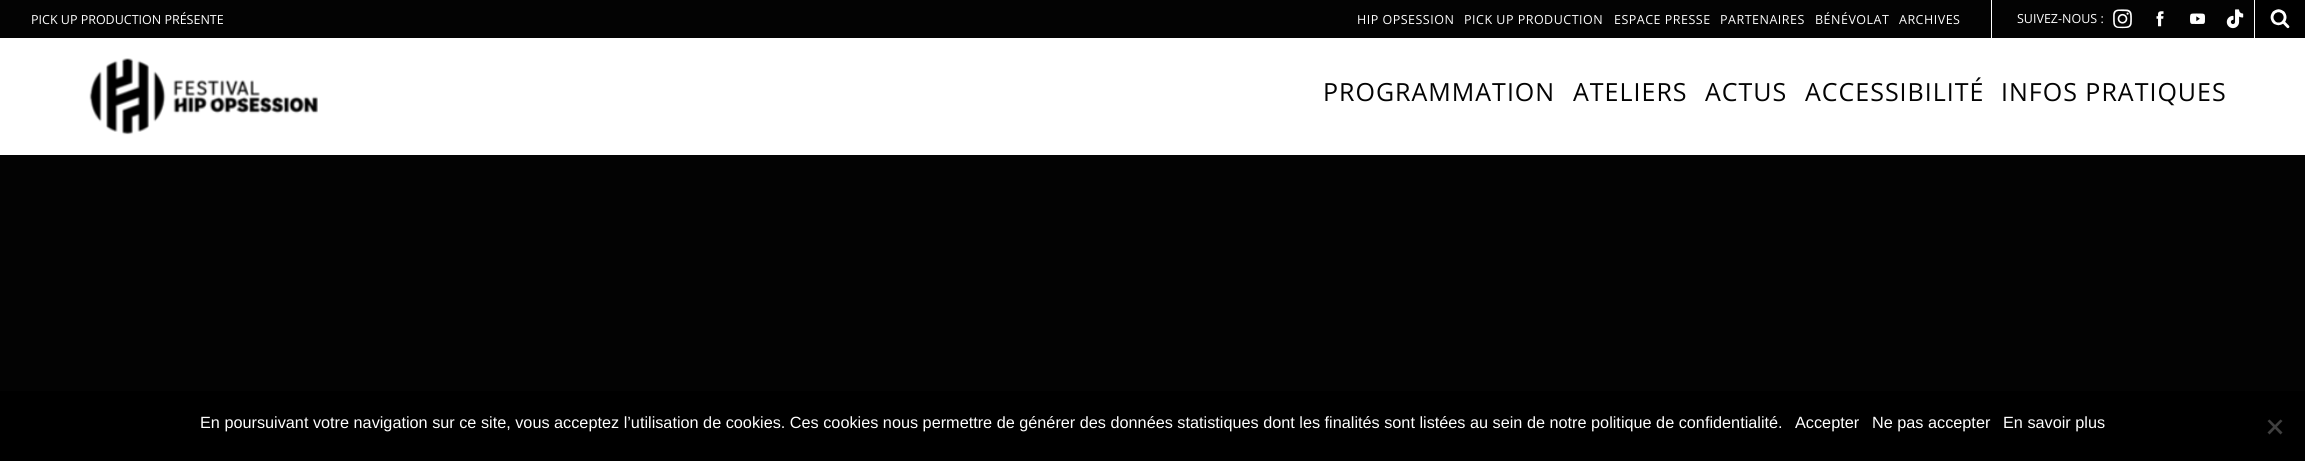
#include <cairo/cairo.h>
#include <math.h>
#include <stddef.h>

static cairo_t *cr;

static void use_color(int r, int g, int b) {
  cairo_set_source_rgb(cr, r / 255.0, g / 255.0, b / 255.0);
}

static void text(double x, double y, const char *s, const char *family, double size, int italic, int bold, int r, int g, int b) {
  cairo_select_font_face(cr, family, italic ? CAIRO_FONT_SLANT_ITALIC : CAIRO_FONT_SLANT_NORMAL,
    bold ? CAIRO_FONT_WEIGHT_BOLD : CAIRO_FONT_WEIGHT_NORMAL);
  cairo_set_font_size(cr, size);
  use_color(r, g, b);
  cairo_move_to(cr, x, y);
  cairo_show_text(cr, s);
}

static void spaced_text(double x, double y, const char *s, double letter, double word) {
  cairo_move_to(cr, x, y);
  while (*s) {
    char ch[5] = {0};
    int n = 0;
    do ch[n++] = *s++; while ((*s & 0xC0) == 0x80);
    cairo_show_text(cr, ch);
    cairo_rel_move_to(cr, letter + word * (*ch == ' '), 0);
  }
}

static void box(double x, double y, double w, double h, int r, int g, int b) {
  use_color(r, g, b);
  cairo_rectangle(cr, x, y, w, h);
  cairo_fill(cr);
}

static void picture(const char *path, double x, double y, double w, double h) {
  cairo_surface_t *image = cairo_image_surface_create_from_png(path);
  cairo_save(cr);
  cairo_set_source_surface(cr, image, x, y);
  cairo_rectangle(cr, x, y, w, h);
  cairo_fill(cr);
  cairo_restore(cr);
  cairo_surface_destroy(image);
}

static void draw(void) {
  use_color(3, 3, 3);
  cairo_paint(cr);
  box(1991, 0, 1, 38, 255, 255, 255);
  picture("img_01.png", 2113, 9, 19, 20);
  picture("img_02.png", 2156, 11, 8, 16);
  picture("img_03.png", 2190, 13, 15, 11);
  picture("img_04.png", 2226, 9, 18, 20);
  box(2255, 0, 50, 38, 0, 0, 0);
  box(2254, 0, 1, 38, 255, 255, 255);
  picture("img_05.png", 2270, 9, 20, 20);
  box(0, 38, 2305, 117, 255, 255, 255);
  picture("img_06.png", 89, 58, 229, 77);
  box(0, 391, 2305, 70, 0, 0, 0);
  use_color(64, 64, 64);
  cairo_new_path(cr);
  cairo_move_to(cr, 2280.5, 419.5);
  cairo_line_to(cr, 2282.5, 421);
  cairo_line_to(cr, 2269.5, 434.5);
  cairo_line_to(cr, 2267.5, 432.5);
  cairo_close_path(cr);
  cairo_fill(cr);
  cairo_new_path(cr);
  cairo_move_to(cr, 2267.5, 421);
  cairo_line_to(cr, 2269.5, 419.5);
  cairo_line_to(cr, 2282.5, 432.5);
  cairo_line_to(cr, 2280.5, 434.5);
  cairo_close_path(cr);
  cairo_fill(cr);
  text(31, 24, "PICK UP PRODUCTION PRÉSENTE", "Open Sans", 12.5, 0, 0, 255, 255, 255);
  spaced_text(1357, 24, "HIP OPSESSION", 0.5, 0);
  spaced_text(1464, 24, "PICK UP PRODUCTION", 0.5, 0);
  spaced_text(1614, 24, "ESPACE PRESSE", 0.5, 0);
  spaced_text(1720, 24, "PARTENAIRES", 0.5, 0);
  spaced_text(1815, 24, "BÉNÉVOLAT", 0.5, 0);
  spaced_text(1899, 24, "ARCHIVES", 0.5, 0);
  text(2017, 23, "SUIVEZ-NOUS :", "Open Sans", 12.5, 0, 0, 255, 255, 255);
  cairo_set_font_size(cr, 25);
  use_color(3, 3, 3);
  spaced_text(1323, 101, "PROGRAMMATION", 1, 0);
  spaced_text(1573, 101, "ATELIERS", 1, 0);
  spaced_text(1705, 101, "ACTUS", 1, 0);
  spaced_text(1805, 101, "ACCESSIBILITÉ", 1, 0);
  spaced_text(2001, 101, "INFOS PRATIQUES", 1, 0);
  text(200, 428, "En poursuivant votre navigation sur ce site, vous acceptez l’utilisation de cookies. Ces cookies nous permettre de générer des données statistiques dont les finalités sont listées au sein de notre politique de confidentialité.", "Liberation Sans", 16.25, 0, 0, 255, 255, 255);
  text(1795, 428, "Accepter", "Liberation Sans", 16.25, 0, 0, 255, 255, 255);
  text(1872, 428, "Ne pas accepter", "Liberation Sans", 16.25, 0, 0, 255, 255, 255);
  text(2003, 428, "En savoir plus", "Liberation Sans", 16.25, 0, 0, 255, 255, 255);
}

int main(void) {
  cairo_surface_t *surface = cairo_image_surface_create(CAIRO_FORMAT_RGB24, 2305, 461);
  cr = cairo_create(surface);
  cairo_font_options_t *options = cairo_font_options_create();
  cairo_font_options_set_hint_metrics(options, CAIRO_HINT_METRICS_OFF);
  cairo_font_options_set_hint_style(options, CAIRO_HINT_STYLE_NONE);
  cairo_set_font_options(cr, options);
  cairo_set_miter_limit(cr, 4);
  draw();
  cairo_surface_write_to_png(surface, "out.png");
  cairo_font_options_destroy(options);
  cairo_destroy(cr);
  cairo_surface_destroy(surface);
  return 0;
}
